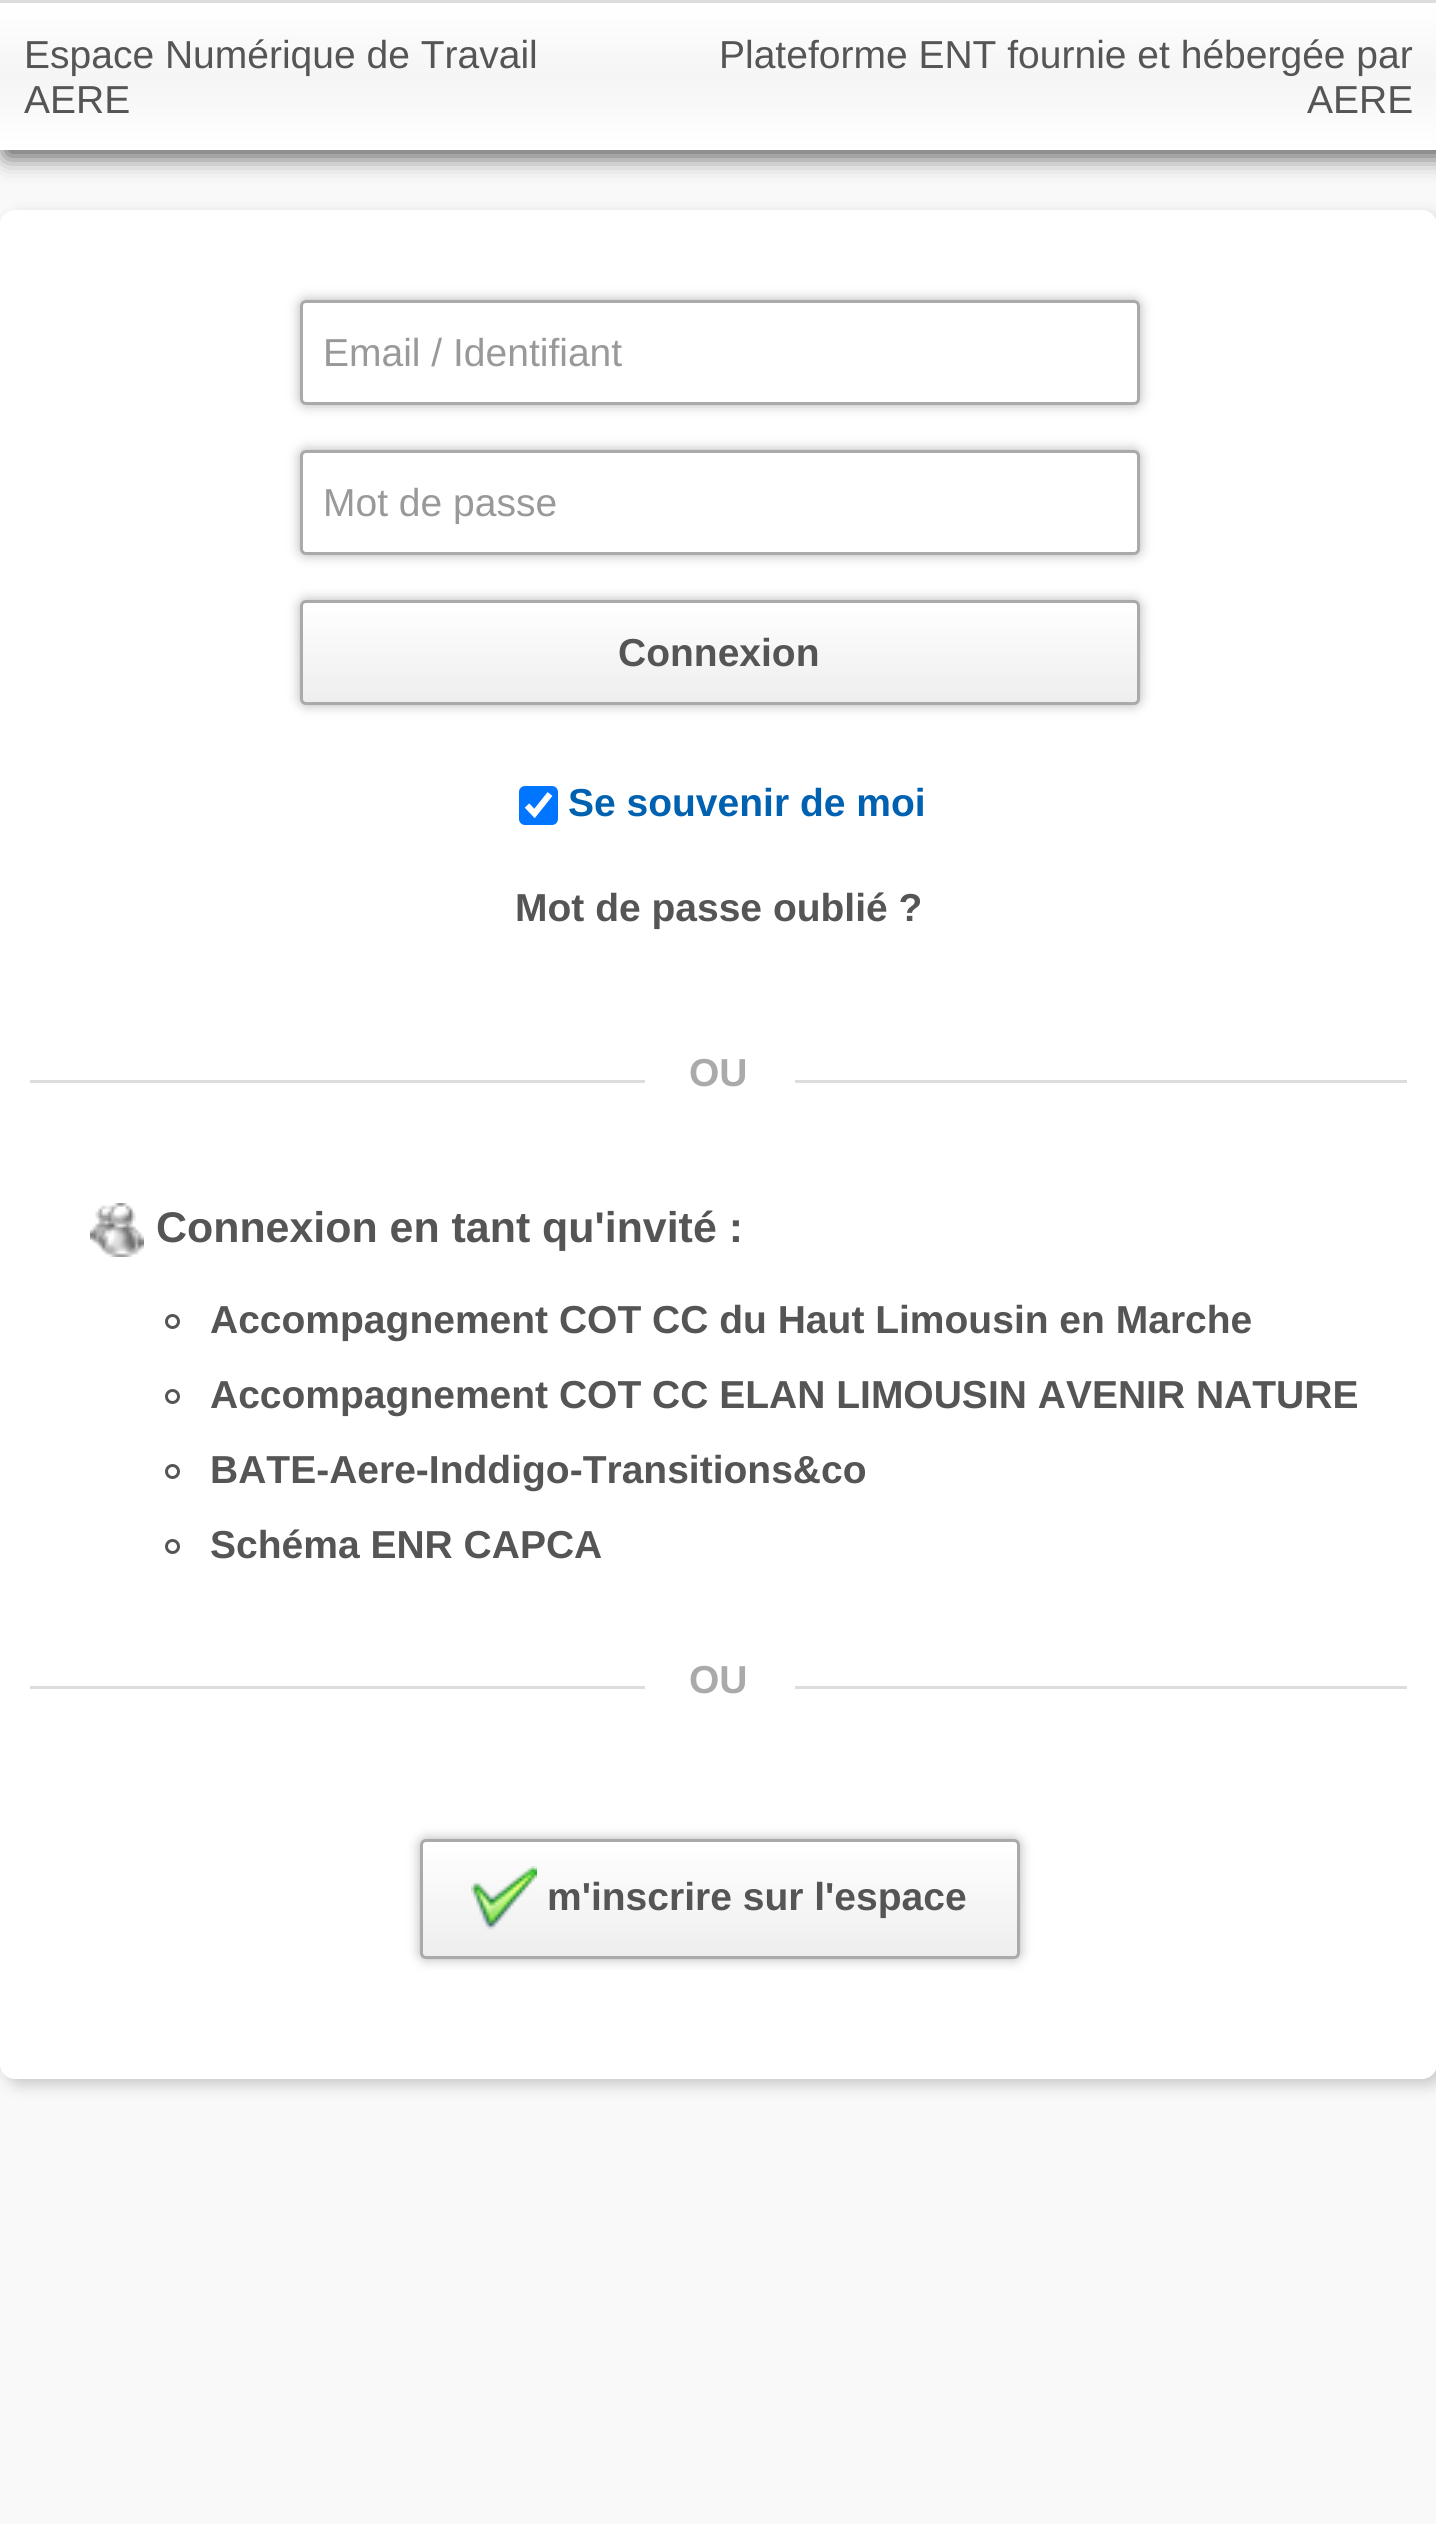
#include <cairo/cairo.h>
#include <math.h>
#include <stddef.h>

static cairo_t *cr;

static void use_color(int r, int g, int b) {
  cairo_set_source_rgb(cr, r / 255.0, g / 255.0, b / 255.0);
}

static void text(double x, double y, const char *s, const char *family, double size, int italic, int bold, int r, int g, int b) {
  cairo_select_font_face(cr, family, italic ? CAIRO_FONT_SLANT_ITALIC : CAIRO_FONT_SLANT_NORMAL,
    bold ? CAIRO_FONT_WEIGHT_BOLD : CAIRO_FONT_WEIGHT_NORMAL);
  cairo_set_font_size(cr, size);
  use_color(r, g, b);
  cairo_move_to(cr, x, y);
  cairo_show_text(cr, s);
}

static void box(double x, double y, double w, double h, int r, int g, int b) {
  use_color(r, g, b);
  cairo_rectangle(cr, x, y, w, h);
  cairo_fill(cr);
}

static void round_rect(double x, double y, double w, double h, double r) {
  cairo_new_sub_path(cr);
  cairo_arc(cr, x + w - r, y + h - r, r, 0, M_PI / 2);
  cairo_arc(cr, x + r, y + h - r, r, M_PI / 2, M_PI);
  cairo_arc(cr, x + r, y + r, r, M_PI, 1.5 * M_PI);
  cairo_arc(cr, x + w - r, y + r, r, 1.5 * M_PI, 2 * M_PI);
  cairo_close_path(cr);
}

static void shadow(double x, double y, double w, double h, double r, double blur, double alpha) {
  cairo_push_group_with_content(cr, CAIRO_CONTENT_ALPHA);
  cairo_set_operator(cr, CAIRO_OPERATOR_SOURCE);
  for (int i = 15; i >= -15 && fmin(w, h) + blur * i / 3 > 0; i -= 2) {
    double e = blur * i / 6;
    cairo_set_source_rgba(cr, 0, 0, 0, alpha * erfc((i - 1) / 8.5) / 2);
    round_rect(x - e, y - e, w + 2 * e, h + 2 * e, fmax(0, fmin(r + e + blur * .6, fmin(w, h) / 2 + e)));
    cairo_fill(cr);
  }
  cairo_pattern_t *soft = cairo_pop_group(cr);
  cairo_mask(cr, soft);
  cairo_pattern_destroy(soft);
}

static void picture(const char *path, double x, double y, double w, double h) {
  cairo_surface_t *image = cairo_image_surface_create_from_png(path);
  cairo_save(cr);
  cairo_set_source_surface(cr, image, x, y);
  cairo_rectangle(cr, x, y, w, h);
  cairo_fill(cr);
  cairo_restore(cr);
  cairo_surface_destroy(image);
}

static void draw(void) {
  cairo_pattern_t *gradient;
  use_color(249, 249, 249);
  cairo_paint(cr);
  use_color(80, 80, 80);
  shadow(6, 6, 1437, 150, 0, 12, 1);
  gradient = cairo_pattern_create_linear(719, 3, 719, 150);
  cairo_pattern_add_color_stop_rgba(gradient, 0, 1, 1, 1, 1);
  cairo_pattern_add_color_stop_rgba(gradient, 0.5, 0.961, 0.961, 0.961, 1);
  cairo_pattern_add_color_stop_rgba(gradient, 1, 1, 1, 1, 1);
  cairo_set_source(cr, gradient);
  cairo_pattern_destroy(gradient);
  cairo_rectangle(cr, 0, 3, 1436, 147);
  cairo_fill(cr);
  box(0, 0, 1436, 3, 221, 221, 221);
  use_color(200, 200, 200);
  shadow(6, 216, 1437, 1869, 15, 7.5, 1);
  use_color(255, 255, 255);
  round_rect(0, 210, 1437, 1869, 15);
  cairo_fill(cr);
  use_color(180, 180, 180);
  shadow(300, 300, 840, 105, 6, 6, 1);
  use_color(255, 255, 255);
  round_rect(301.5, 301.5, 837, 102, 4.5);
  cairo_fill_preserve(cr);
  use_color(170, 170, 170);
  cairo_set_line_width(cr, 3);
  cairo_stroke(cr);
  use_color(180, 180, 180);
  shadow(300, 450, 840, 105, 6, 6, 1);
  use_color(255, 255, 255);
  round_rect(301.5, 451.5, 837, 102, 4.5);
  cairo_fill_preserve(cr);
  use_color(170, 170, 170);
  cairo_stroke(cr);
  use_color(180, 180, 180);
  shadow(300, 600, 840, 105, 6, 6, 1);
  cairo_save(cr);
  round_rect(300, 600, 840, 105, 6);
  cairo_clip(cr);
  gradient = cairo_pattern_create_linear(720, 603, 720, 702);
  cairo_pattern_add_color_stop_rgba(gradient, 0, 1, 1, 1, 1);
  cairo_pattern_add_color_stop_rgba(gradient, 1, 0.933, 0.933, 0.933, 1);
  cairo_set_source(cr, gradient);
  cairo_pattern_destroy(gradient);
  cairo_rectangle(cr, 300, 603, 840, 99);
  cairo_fill(cr);
  cairo_restore(cr);
  round_rect(301.5, 601.5, 837, 102, 4.5);
  use_color(170, 170, 170);
  cairo_stroke(cr);
  use_color(0, 117, 255);
  round_rect(519, 786, 39, 39, 6);
  cairo_fill(cr);
  cairo_new_path(cr);
  cairo_move_to(cr, 527, 805.5);
  cairo_line_to(cr, 534.5, 813.5);
  cairo_line_to(cr, 550, 794);
  use_color(255, 255, 255);
  cairo_set_line_width(cr, 6.2);
  cairo_stroke(cr);
  box(30, 1080, 615, 3, 221, 221, 221);
  box(795, 1080, 612, 3, 221, 221, 221);
  picture("img_01.png", 90, 1203, 54, 54);
  cairo_arc(cr, 172.5, 1321.5, 6, 0, 2 * M_PI);
  use_color(85, 85, 85);
  cairo_set_line_width(cr, 3);
  cairo_stroke(cr);
  cairo_arc(cr, 172.5, 1396.5, 6, 0, 2 * M_PI);
  cairo_stroke(cr);
  cairo_arc(cr, 172.5, 1471.5, 6, 0, 2 * M_PI);
  cairo_stroke(cr);
  cairo_arc(cr, 172.5, 1546.5, 6, 0, 2 * M_PI);
  cairo_stroke(cr);
  box(30, 1686, 615, 3, 221, 221, 221);
  box(795, 1686, 612, 3, 221, 221, 221);
  use_color(180, 180, 180);
  shadow(420, 1839, 600, 120, 6, 6, 1);
  cairo_save(cr);
  round_rect(420, 1839, 600, 120, 6);
  cairo_clip(cr);
  gradient = cairo_pattern_create_linear(720, 1842, 720, 1956);
  cairo_pattern_add_color_stop_rgba(gradient, 0, 1, 1, 1, 1);
  cairo_pattern_add_color_stop_rgba(gradient, 1, 0.933, 0.933, 0.933, 1);
  cairo_set_source(cr, gradient);
  cairo_pattern_destroy(gradient);
  cairo_rectangle(cr, 420, 1842, 600, 114);
  cairo_fill(cr);
  cairo_restore(cr);
  round_rect(421.5, 1840.5, 597, 117, 4.5);
  use_color(170, 170, 170);
  cairo_stroke(cr);
  picture("img_02.png", 471, 1866, 66, 64);
  text(24, 68, "Espace Numérique de Travail", "Liberation Sans", 39, 0, 0, 85, 85, 85);
  text(24, 113, "AERE", "Liberation Sans", 39, 0, 0, 85, 85, 85);
  text(719, 68, "Plateforme ENT fournie et hébergée par", "Liberation Sans", 39, 0, 0, 85, 85, 85);
  text(1307, 113, "AERE", "Liberation Sans", 39, 0, 0, 85, 85, 85);
  text(323, 366, "Email / Identifiant", "Liberation Sans", 39, 0, 0, 153, 153, 153);
  text(323, 516, "Mot de passe", "Liberation Sans", 39, 0, 0, 153, 153, 153);
  text(618, 666, "Connexion", "Liberation Sans", 39, 0, 1, 85, 85, 85);
  text(568, 816, "Se souvenir de moi", "Liberation Sans", 39, 0, 1, 0, 97, 177);
  text(515, 921, "Mot de passe oublié ?", "Liberation Sans", 39, 0, 1, 85, 85, 85);
  text(689, 1086, "OU", "Liberation Sans", 39, 0, 1, 170, 170, 170);
  text(156, 1242, "Connexion en tant qu'invité :", "Liberation Sans", 42.9, 0, 1, 85, 85, 85);
  text(210, 1333, "Accompagnement COT CC du Haut Limousin en Marche", "Liberation Sans", 39, 0, 1, 85, 85, 85);
  text(210, 1408, "Accompagnement COT CC ELAN LIMOUSIN AVENIR NATURE", "Liberation Sans", 39, 0, 1, 85, 85, 85);
  text(210, 1483, "BATE-Aere-Inddigo-Transitions&co", "Liberation Sans", 39, 0, 1, 85, 85, 85);
  text(210, 1558, "Schéma ENR CAPCA", "Liberation Sans", 39, 0, 1, 85, 85, 85);
  text(689, 1693, "OU", "Liberation Sans", 39, 0, 1, 170, 170, 170);
  text(547, 1910, "m'inscrire sur l'espace", "Liberation Sans", 39, 0, 1, 85, 85, 85);
}

int main(void) {
  cairo_surface_t *surface = cairo_image_surface_create(CAIRO_FORMAT_RGB24, 1436, 2524);
  cr = cairo_create(surface);
  cairo_font_options_t *options = cairo_font_options_create();
  cairo_font_options_set_hint_metrics(options, CAIRO_HINT_METRICS_OFF);
  cairo_font_options_set_hint_style(options, CAIRO_HINT_STYLE_NONE);
  cairo_set_font_options(cr, options);
  cairo_set_miter_limit(cr, 4);
  draw();
  cairo_surface_write_to_png(surface, "out.png");
  cairo_font_options_destroy(options);
  cairo_destroy(cr);
  cairo_surface_destroy(surface);
  return 0;
}
